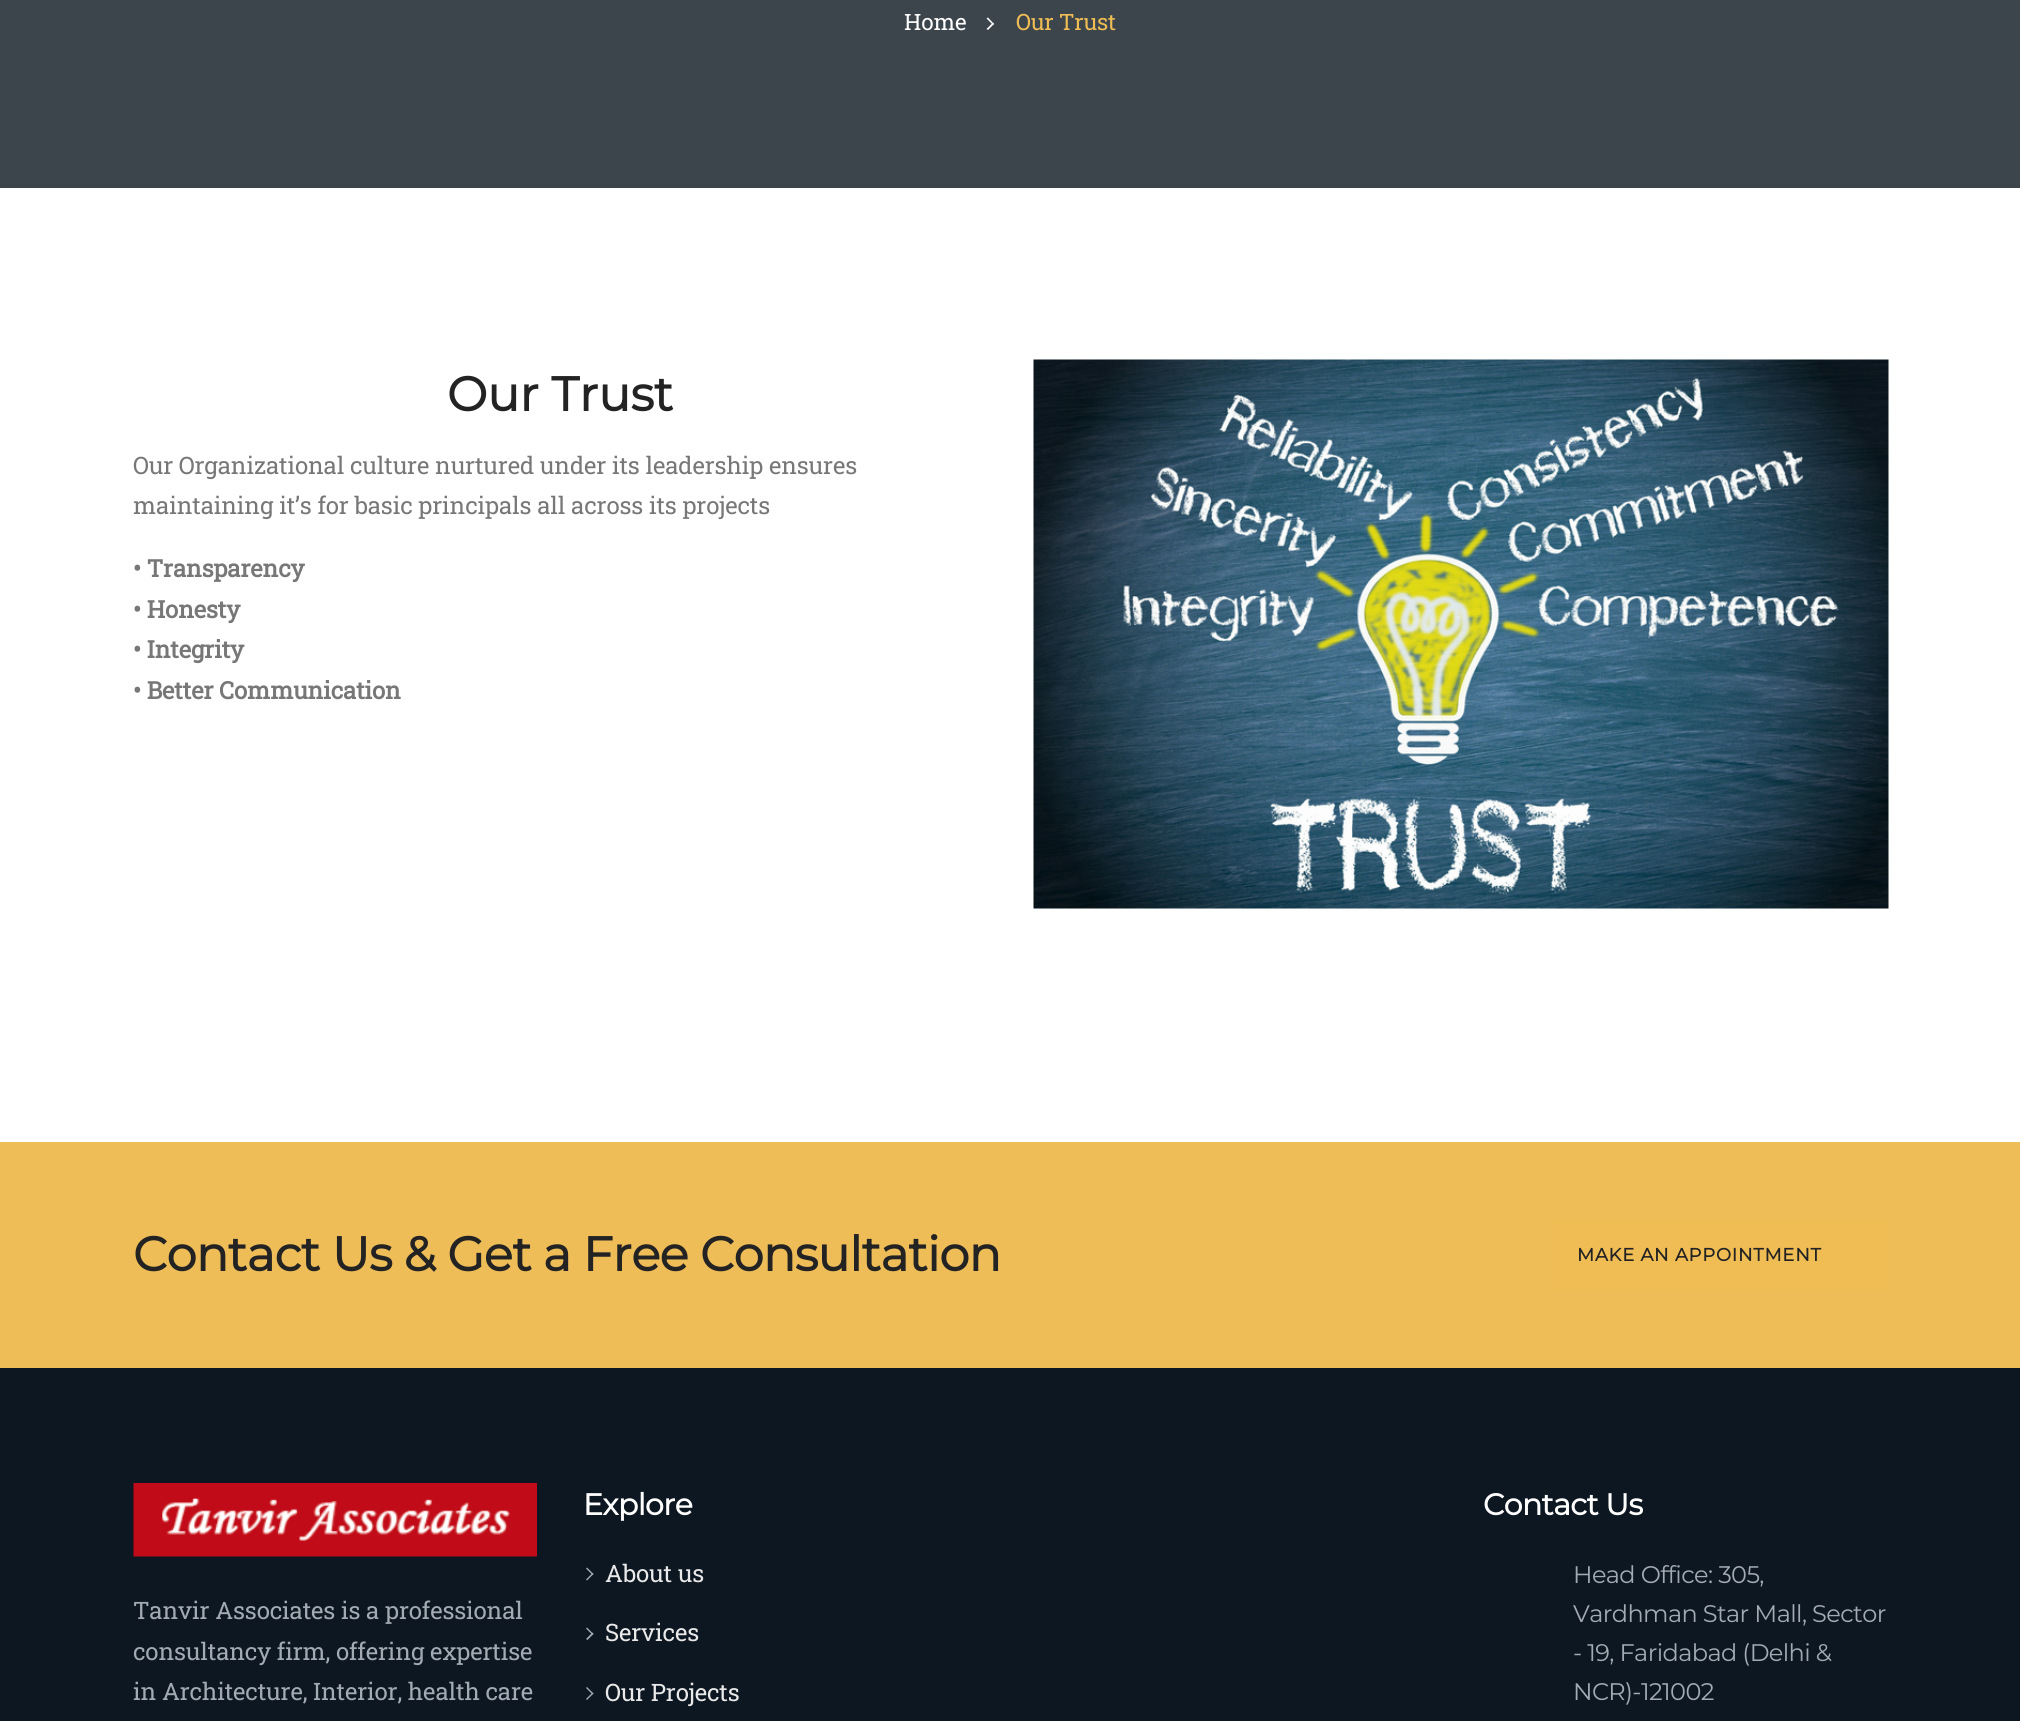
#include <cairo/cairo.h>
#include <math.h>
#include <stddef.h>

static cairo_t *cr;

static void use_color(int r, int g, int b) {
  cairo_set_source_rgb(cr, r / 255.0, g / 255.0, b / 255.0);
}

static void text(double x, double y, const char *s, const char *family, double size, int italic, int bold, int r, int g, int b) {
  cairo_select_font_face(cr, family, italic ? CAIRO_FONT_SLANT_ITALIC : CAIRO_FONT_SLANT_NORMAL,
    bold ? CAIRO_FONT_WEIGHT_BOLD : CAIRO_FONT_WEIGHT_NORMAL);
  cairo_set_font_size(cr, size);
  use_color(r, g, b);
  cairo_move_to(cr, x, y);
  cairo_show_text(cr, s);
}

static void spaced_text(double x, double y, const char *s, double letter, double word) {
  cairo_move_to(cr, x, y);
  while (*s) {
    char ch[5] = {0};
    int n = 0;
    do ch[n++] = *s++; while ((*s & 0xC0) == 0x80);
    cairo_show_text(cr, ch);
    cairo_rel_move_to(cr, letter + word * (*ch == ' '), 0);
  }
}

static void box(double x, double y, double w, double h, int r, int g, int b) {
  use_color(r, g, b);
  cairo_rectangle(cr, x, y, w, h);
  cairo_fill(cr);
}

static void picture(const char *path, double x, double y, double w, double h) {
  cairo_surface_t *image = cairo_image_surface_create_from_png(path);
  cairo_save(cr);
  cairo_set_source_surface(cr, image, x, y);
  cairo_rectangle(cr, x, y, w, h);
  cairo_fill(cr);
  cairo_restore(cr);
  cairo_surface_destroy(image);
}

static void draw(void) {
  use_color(255, 255, 255);
  cairo_paint(cr);
  box(0, 0, 2020, 188, 60, 68, 76);
  use_color(255, 255, 255);
  cairo_new_path(cr);
  cairo_move_to(cr, 988, 17.5);
  cairo_line_to(cr, 994, 24);
  cairo_line_to(cr, 993, 25);
  cairo_line_to(cr, 986.5, 18.5);
  cairo_close_path(cr);
  cairo_fill(cr);
  cairo_new_path(cr);
  cairo_move_to(cr, 993, 22.5);
  cairo_line_to(cr, 994, 24);
  cairo_line_to(cr, 988, 30);
  cairo_line_to(cr, 986.5, 29);
  cairo_close_path(cr);
  cairo_fill(cr);
  picture("img_01.png", 1033, 359, 856, 550);
  box(0, 1142, 2020, 226, 238, 189, 88);
  box(1553, 1220, 336, 70, 240, 189, 84);
  box(0, 1368, 2020, 353, 13, 23, 33);
  picture("img_02.png", 133, 1483, 404, 74);
  use_color(162, 171, 179);
  cairo_new_path(cr);
  cairo_move_to(cr, 592.5, 1575);
  cairo_line_to(cr, 586, 1568.5);
  cairo_line_to(cr, 587, 1567.5);
  cairo_line_to(cr, 593.5, 1574);
  cairo_close_path(cr);
  cairo_fill(cr);
  cairo_new_path(cr);
  cairo_move_to(cr, 587, 1580.5);
  cairo_line_to(cr, 586, 1579.5);
  cairo_line_to(cr, 592.5, 1573);
  cairo_line_to(cr, 593.5, 1574);
  cairo_close_path(cr);
  cairo_fill(cr);
  cairo_new_path(cr);
  cairo_move_to(cr, 592.5, 1635);
  cairo_line_to(cr, 586, 1628.5);
  cairo_line_to(cr, 587, 1627.5);
  cairo_line_to(cr, 593.5, 1634);
  cairo_close_path(cr);
  cairo_fill(cr);
  cairo_new_path(cr);
  cairo_move_to(cr, 587.5, 1640);
  cairo_line_to(cr, 586, 1639);
  cairo_line_to(cr, 592.5, 1632.5);
  cairo_line_to(cr, 593.5, 1634);
  cairo_close_path(cr);
  cairo_fill(cr);
  cairo_new_path(cr);
  cairo_move_to(cr, 592.5, 1694.5);
  cairo_line_to(cr, 586, 1688);
  cairo_line_to(cr, 587, 1687);
  cairo_line_to(cr, 593.5, 1693.5);
  cairo_close_path(cr);
  cairo_fill(cr);
  cairo_new_path(cr);
  cairo_move_to(cr, 587, 1700);
  cairo_line_to(cr, 586, 1699);
  cairo_line_to(cr, 592.5, 1692.5);
  cairo_line_to(cr, 593.5, 1693.5);
  cairo_close_path(cr);
  cairo_fill(cr);
  cairo_select_font_face(cr, "Roboto Slab", CAIRO_FONT_SLANT_NORMAL, CAIRO_FONT_WEIGHT_NORMAL);
  cairo_set_font_size(cr, 22.5);
  use_color(255, 255, 255);
  spaced_text(904, 30, "Home", -0.15, 0);
  use_color(240, 189, 84);
  spaced_text(1016, 30, "Our Trust", -0.15, 0);
  text(447, 411, "Our Trust", "Montserrat", 48, 0, 1, 35, 35, 35);
  cairo_select_font_face(cr, "Roboto Slab", CAIRO_FONT_SLANT_NORMAL, CAIRO_FONT_WEIGHT_NORMAL);
  cairo_set_font_size(cr, 24);
  use_color(119, 119, 119);
  spaced_text(133, 474, "Our Organizational culture nurtured under its leadership ensures", -0.15, 0);
  spaced_text(133, 514, "maintaining it’s for basic principals all across its projects", -0.15, 0);
  cairo_select_font_face(cr, "Roboto Slab", CAIRO_FONT_SLANT_NORMAL, CAIRO_FONT_WEIGHT_BOLD);
  spaced_text(133, 577, "• Transparency", -0.15, 0);
  spaced_text(133, 618, "• Honesty", -0.15, 0);
  spaced_text(133, 658, "• Integrity", -0.15, 0);
  spaced_text(133, 699, "• Better Communication", -0.15, 0);
  cairo_select_font_face(cr, "Montserrat", CAIRO_FONT_SLANT_NORMAL, CAIRO_FONT_WEIGHT_BOLD);
  cairo_set_font_size(cr, 48);
  use_color(35, 35, 35);
  spaced_text(133, 1271, "Contact Us & Get a Free Consultation", -0.6, 0);
  cairo_set_font_size(cr, 18);
  spaced_text(1577, 1261, "MAKE AN APPOINTMENT", 0.75, 0);
  cairo_select_font_face(cr, "Roboto Slab", CAIRO_FONT_SLANT_NORMAL, CAIRO_FONT_WEIGHT_NORMAL);
  cairo_set_font_size(cr, 24);
  use_color(162, 171, 179);
  spaced_text(133, 1619, "Tanvir Associates is a professional", -0.15, 0);
  spaced_text(133, 1660, "consultancy firm, offering expertise", -0.15, 0);
  spaced_text(133, 1700, "in Architecture, Interior, health care", -0.15, 0);
  cairo_select_font_face(cr, "Montserrat", CAIRO_FONT_SLANT_NORMAL, CAIRO_FONT_WEIGHT_BOLD);
  cairo_set_font_size(cr, 30);
  use_color(255, 255, 255);
  spaced_text(583, 1515, "Explore", -0.6, 0);
  cairo_select_font_face(cr, "Roboto Slab", CAIRO_FONT_SLANT_NORMAL, CAIRO_FONT_WEIGHT_NORMAL);
  cairo_set_font_size(cr, 24);
  use_color(233, 233, 233);
  spaced_text(605, 1582, "About us", -0.15, 0);
  spaced_text(605, 1641, "Services", -0.15, 0);
  spaced_text(605, 1701, "Our Projects", -0.15, 0);
  cairo_select_font_face(cr, "Montserrat", CAIRO_FONT_SLANT_NORMAL, CAIRO_FONT_WEIGHT_BOLD);
  cairo_set_font_size(cr, 30);
  use_color(255, 255, 255);
  spaced_text(1483, 1515, "Contact Us", -0.6, 0);
  cairo_select_font_face(cr, "Montserrat Thin", CAIRO_FONT_SLANT_NORMAL, CAIRO_FONT_WEIGHT_NORMAL);
  cairo_set_font_size(cr, 24);
  use_color(162, 171, 179);
  spaced_text(1573, 1583, "Head Office: 305,", -0.6, 0);
  spaced_text(1573, 1622, "Vardhman Star Mall, Sector", -0.6, 0);
  spaced_text(1573, 1661, "- 19, Faridabad (Delhi &", -0.6, 0);
  spaced_text(1573, 1700, "NCR)-121002", -0.6, 0);
}

int main(void) {
  cairo_surface_t *surface = cairo_image_surface_create(CAIRO_FORMAT_RGB24, 2020, 1721);
  cr = cairo_create(surface);
  cairo_font_options_t *options = cairo_font_options_create();
  cairo_font_options_set_hint_metrics(options, CAIRO_HINT_METRICS_OFF);
  cairo_font_options_set_hint_style(options, CAIRO_HINT_STYLE_NONE);
  cairo_set_font_options(cr, options);
  cairo_set_miter_limit(cr, 4);
  draw();
  cairo_surface_write_to_png(surface, "out.png");
  cairo_font_options_destroy(options);
  cairo_destroy(cr);
  cairo_surface_destroy(surface);
  return 0;
}
